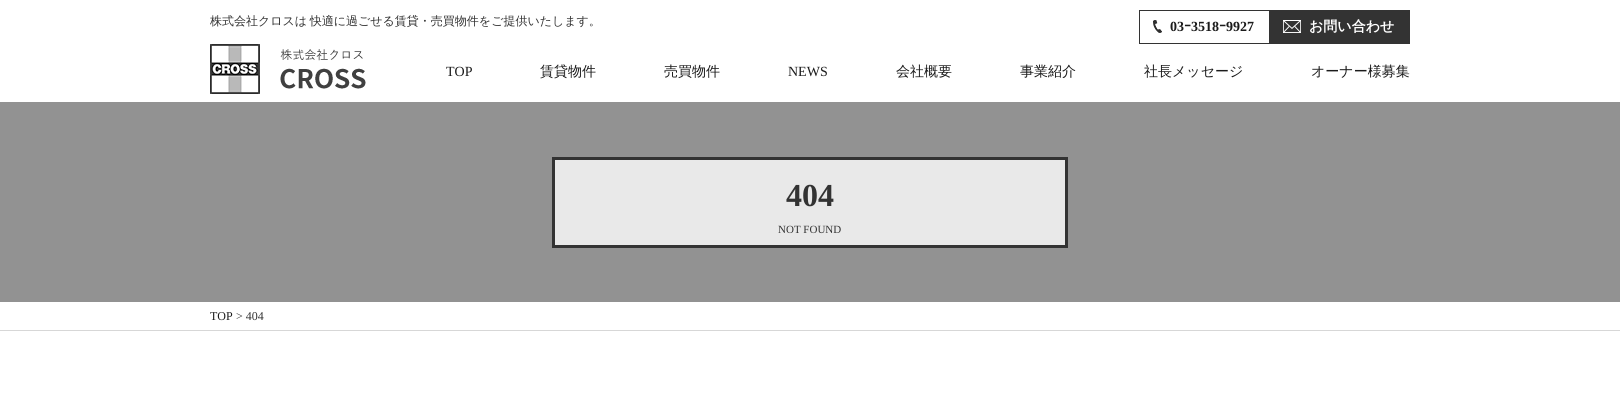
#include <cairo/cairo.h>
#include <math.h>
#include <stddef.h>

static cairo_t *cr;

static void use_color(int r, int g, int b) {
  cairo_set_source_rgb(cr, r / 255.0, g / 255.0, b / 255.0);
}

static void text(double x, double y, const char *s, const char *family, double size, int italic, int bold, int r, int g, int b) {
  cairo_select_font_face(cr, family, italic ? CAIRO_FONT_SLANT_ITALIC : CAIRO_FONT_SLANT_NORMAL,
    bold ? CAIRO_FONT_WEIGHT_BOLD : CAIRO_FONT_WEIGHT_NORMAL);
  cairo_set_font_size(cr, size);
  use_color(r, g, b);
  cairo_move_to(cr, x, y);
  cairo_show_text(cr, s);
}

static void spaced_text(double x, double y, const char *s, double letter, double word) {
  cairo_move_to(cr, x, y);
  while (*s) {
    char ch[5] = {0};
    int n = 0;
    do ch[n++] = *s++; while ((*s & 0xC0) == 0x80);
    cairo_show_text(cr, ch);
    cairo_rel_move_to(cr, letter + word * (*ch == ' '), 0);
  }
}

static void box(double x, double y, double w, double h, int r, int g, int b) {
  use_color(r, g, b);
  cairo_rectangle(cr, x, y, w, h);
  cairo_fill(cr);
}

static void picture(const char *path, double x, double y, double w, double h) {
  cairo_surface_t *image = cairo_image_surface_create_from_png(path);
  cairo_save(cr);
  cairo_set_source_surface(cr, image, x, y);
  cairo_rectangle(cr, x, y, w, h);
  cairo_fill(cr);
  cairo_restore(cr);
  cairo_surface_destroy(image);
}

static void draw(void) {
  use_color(255, 255, 255);
  cairo_paint(cr);
  picture("img_01.png", 1153, 20, 9, 13);
  cairo_rectangle(cr, 1139.5, 10.5, 130, 33);
  use_color(51, 51, 51);
  cairo_set_line_width(cr, 1);
  cairo_stroke(cr);
  box(1270, 10, 140, 34, 51, 51, 51);
  picture("img_02.png", 1283, 20, 18, 13);
  picture("img_03.png", 210, 44, 156, 50);
  box(0, 102, 1620, 200, 146, 146, 146);
  use_color(233, 233, 233);
  cairo_rectangle(cr, 553.5, 158.5, 513, 88);
  cairo_fill_preserve(cr);
  use_color(51, 51, 51);
  cairo_set_line_width(cr, 3);
  cairo_stroke(cr);
  box(0, 330, 1620, 1, 215, 215, 215);
  cairo_select_font_face(cr, "WenQuanYi Zen Hei Medium", CAIRO_FONT_SLANT_NORMAL, CAIRO_FONT_WEIGHT_NORMAL);
  cairo_set_font_size(cr, 12);
  use_color(51, 51, 51);
  spaced_text(210, 25, "株式会社クロスは 快適に過ごせる賃貸・売買物件をご提供いたします。", 0, -1);
  text(1170, 31, "03", "Liberation Serif", 14, 0, 1, 27, 27, 27);
  text(1184, 31, "ｰ", "IPAPGothic", 14, 0, 1, 27, 27, 27);
  text(1191, 31, "3518", "Liberation Serif", 14, 0, 1, 27, 27, 27);
  text(1219, 31, "ｰ", "IPAPGothic", 14, 0, 1, 27, 27, 27);
  text(1226, 31, "9927", "Liberation Serif", 14, 0, 1, 27, 27, 27);
  text(1309, 31, "お問い合わせ", "WenQuanYi Zen Hei", 14, 0, 1, 255, 255, 255);
  text(446, 76, "TOP", "Liberation Serif", 14, 0, 0, 27, 27, 27);
  text(540, 76, "賃貸物件", "WenQuanYi Zen Hei Medium", 14, 0, 0, 27, 27, 27);
  text(664, 76, "売買物件", "WenQuanYi Zen Hei Medium", 14, 0, 0, 27, 27, 27);
  text(788, 76, "NEWS", "Liberation Serif", 14, 0, 0, 27, 27, 27);
  text(896, 76, "会社概要", "WenQuanYi Zen Hei Medium", 14, 0, 0, 27, 27, 27);
  text(1020, 76, "事業紹介", "WenQuanYi Zen Hei Medium", 14, 0, 0, 27, 27, 27);
  text(1144, 76, "社長メッセージ", "WenQuanYi Zen Hei Medium", 14, 0, 0, 27, 27, 27);
  text(1311, 76, "オーナー様募集", "WenQuanYi Zen Hei Medium", 14, 0, 0, 27, 27, 27);
  text(786, 206, "404", "Liberation Serif", 32, 0, 1, 51, 51, 51);
  text(778, 233, "NOT FOUND", "Liberation Serif", 11, 0, 0, 51, 51, 51);
  text(210, 320, "TOP", "Liberation Serif", 12, 0, 0, 27, 27, 27);
  text(236, 320, "> 404", "Liberation Serif", 12, 0, 0, 51, 51, 51);
}

int main(void) {
  cairo_surface_t *surface = cairo_image_surface_create(CAIRO_FORMAT_RGB24, 1620, 398);
  cr = cairo_create(surface);
  cairo_font_options_t *options = cairo_font_options_create();
  cairo_font_options_set_hint_metrics(options, CAIRO_HINT_METRICS_OFF);
  cairo_font_options_set_hint_style(options, CAIRO_HINT_STYLE_NONE);
  cairo_set_font_options(cr, options);
  cairo_set_miter_limit(cr, 4);
  draw();
  cairo_surface_write_to_png(surface, "out.png");
  cairo_font_options_destroy(options);
  cairo_destroy(cr);
  cairo_surface_destroy(surface);
  return 0;
}
